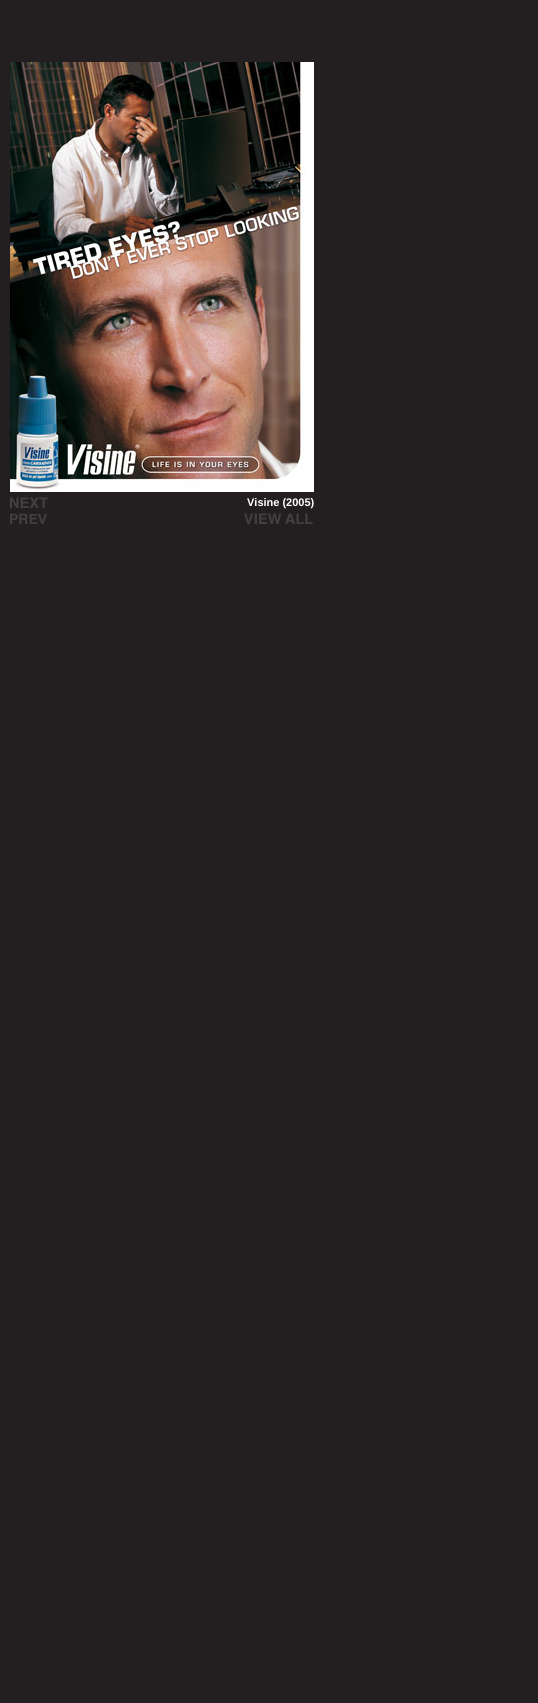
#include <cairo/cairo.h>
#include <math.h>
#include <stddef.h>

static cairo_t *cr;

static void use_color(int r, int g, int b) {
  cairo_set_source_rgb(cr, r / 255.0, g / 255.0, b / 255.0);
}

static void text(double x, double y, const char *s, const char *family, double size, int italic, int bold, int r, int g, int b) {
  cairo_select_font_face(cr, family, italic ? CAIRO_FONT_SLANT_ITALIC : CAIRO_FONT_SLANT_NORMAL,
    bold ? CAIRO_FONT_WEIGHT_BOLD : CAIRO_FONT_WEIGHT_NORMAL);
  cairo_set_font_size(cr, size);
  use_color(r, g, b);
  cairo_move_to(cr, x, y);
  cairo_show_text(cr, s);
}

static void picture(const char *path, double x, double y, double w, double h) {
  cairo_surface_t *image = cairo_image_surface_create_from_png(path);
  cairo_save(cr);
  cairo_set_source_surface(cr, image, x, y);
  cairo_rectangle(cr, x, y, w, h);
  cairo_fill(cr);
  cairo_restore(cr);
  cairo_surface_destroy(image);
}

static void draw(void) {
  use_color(35, 31, 32);
  cairo_paint(cr);
  picture("img_01.png", 10, 62, 304, 430);
  picture("img_02.png", 10, 494, 38, 16);
  picture("img_03.png", 10, 513, 37, 11);
  picture("img_04.png", 244, 513, 69, 11);
  text(247, 506, "Visine (2005)", "Liberation Sans", 11, 0, 1, 255, 255, 255);
}

int main(void) {
  cairo_surface_t *surface = cairo_image_surface_create(CAIRO_FORMAT_RGB24, 538, 1703);
  cr = cairo_create(surface);
  cairo_font_options_t *options = cairo_font_options_create();
  cairo_font_options_set_hint_metrics(options, CAIRO_HINT_METRICS_OFF);
  cairo_font_options_set_hint_style(options, CAIRO_HINT_STYLE_NONE);
  cairo_set_font_options(cr, options);
  cairo_set_miter_limit(cr, 4);
  draw();
  cairo_surface_write_to_png(surface, "out.png");
  cairo_font_options_destroy(options);
  cairo_destroy(cr);
  cairo_surface_destroy(surface);
  return 0;
}
